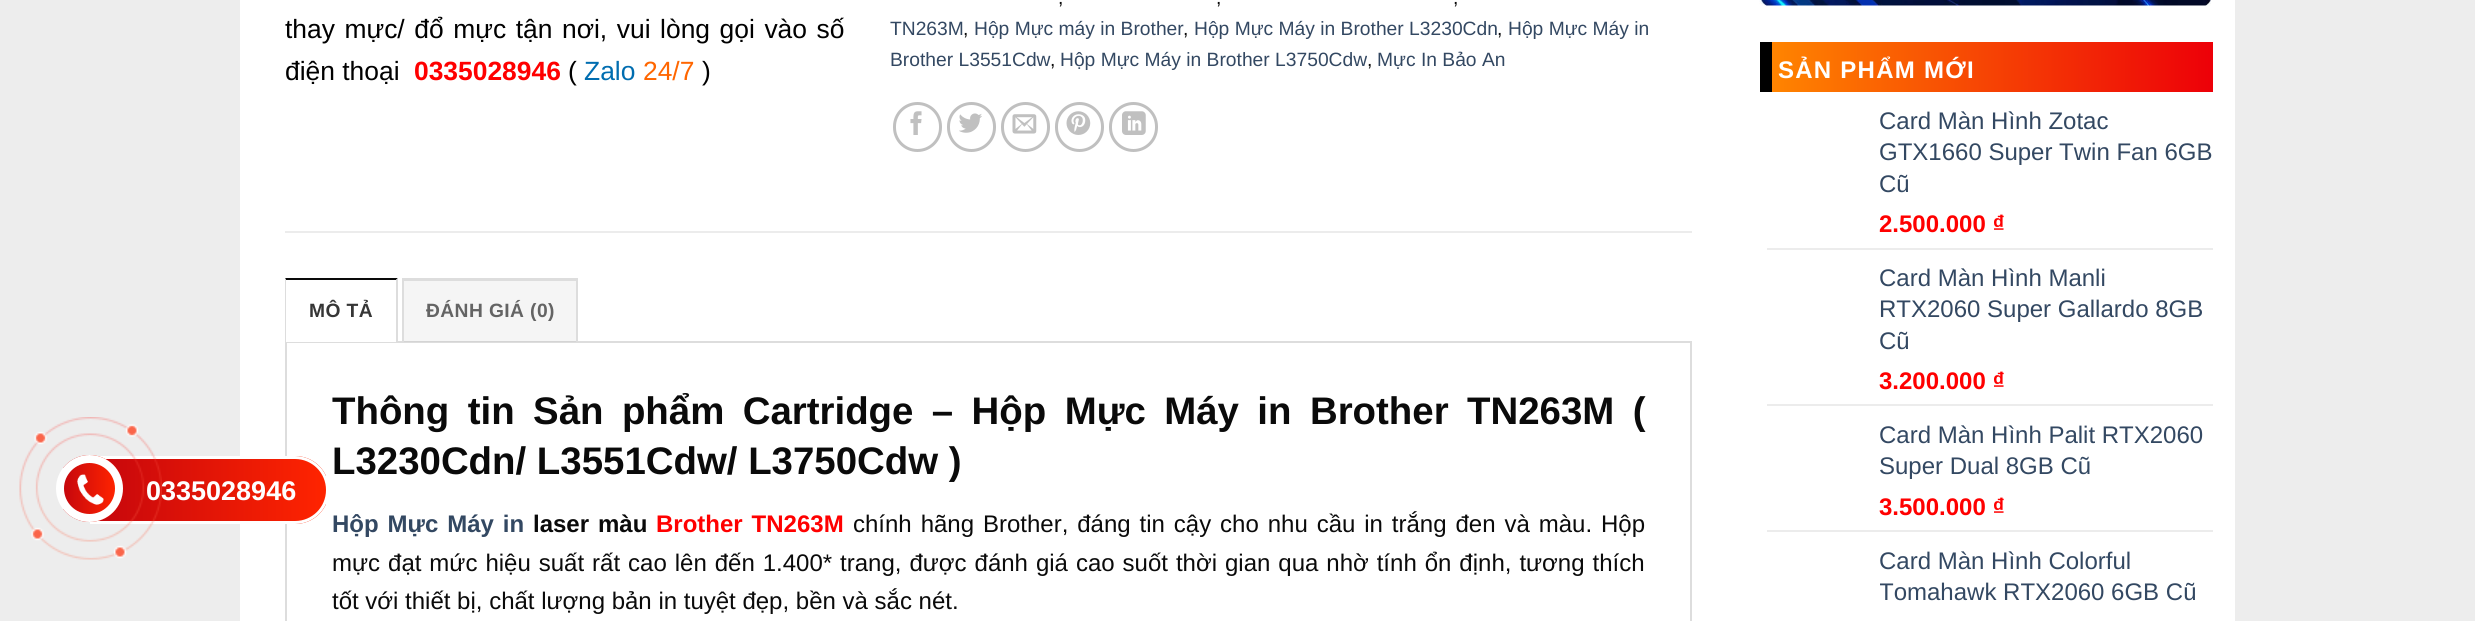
#include <cairo/cairo.h>
#include <math.h>
#include <stddef.h>

static cairo_t *cr;

static void use_color(int r, int g, int b) {
  cairo_set_source_rgb(cr, r / 255.0, g / 255.0, b / 255.0);
}

static void text(double x, double y, const char *s, const char *family, double size, int italic, int bold, int r, int g, int b) {
  cairo_select_font_face(cr, family, italic ? CAIRO_FONT_SLANT_ITALIC : CAIRO_FONT_SLANT_NORMAL,
    bold ? CAIRO_FONT_WEIGHT_BOLD : CAIRO_FONT_WEIGHT_NORMAL);
  cairo_set_font_size(cr, size);
  use_color(r, g, b);
  cairo_move_to(cr, x, y);
  cairo_show_text(cr, s);
}

static void spaced_text(double x, double y, const char *s, double letter, double word) {
  cairo_move_to(cr, x, y);
  while (*s) {
    char ch[5] = {0};
    int n = 0;
    do ch[n++] = *s++; while ((*s & 0xC0) == 0x80);
    cairo_show_text(cr, ch);
    cairo_rel_move_to(cr, letter + word * (*ch == ' '), 0);
  }
}

static void box(double x, double y, double w, double h, int r, int g, int b) {
  use_color(r, g, b);
  cairo_rectangle(cr, x, y, w, h);
  cairo_fill(cr);
}

static void round_rect(double x, double y, double w, double h, double r) {
  cairo_new_sub_path(cr);
  cairo_arc(cr, x + w - r, y + h - r, r, 0, M_PI / 2);
  cairo_arc(cr, x + r, y + h - r, r, M_PI / 2, M_PI);
  cairo_arc(cr, x + r, y + r, r, M_PI, 1.5 * M_PI);
  cairo_arc(cr, x + w - r, y + r, r, 1.5 * M_PI, 2 * M_PI);
  cairo_close_path(cr);
}

static void picture(const char *path, double x, double y, double w, double h) {
  cairo_surface_t *image = cairo_image_surface_create_from_png(path);
  cairo_save(cr);
  cairo_set_source_surface(cr, image, x, y);
  cairo_rectangle(cr, x, y, w, h);
  cairo_fill(cr);
  cairo_restore(cr);
  cairo_surface_destroy(image);
}

static void draw(void) {
  cairo_pattern_t *gradient;
  use_color(237, 237, 237);
  cairo_paint(cr);
  box(240, 0, 1995, 621, 255, 255, 255);
  cairo_rectangle(cr, 286, 342, 1405, 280);
  use_color(221, 221, 221);
  cairo_stroke(cr);
  cairo_save(cr);
  cairo_new_path(cr);
  cairo_move_to(cr, 90, 456);
  cairo_line_to(cr, 295, 456);
  cairo_curve_to(cr, 314, 456, 329, 471, 329, 490);
  cairo_curve_to(cr, 329, 509, 314, 524, 295, 524);
  cairo_line_to(cr, 90, 524);
  cairo_close_path(cr);
  cairo_clip(cr);
  gradient = cairo_pattern_create_linear(93, 490, 326, 490);
  cairo_pattern_add_color_stop_rgba(gradient, 0, 0.773, 0.024, 0.051, 1);
  cairo_pattern_add_color_stop_rgba(gradient, 1, 1, 0.141, 0, 1);
  cairo_set_source(cr, gradient);
  cairo_pattern_destroy(gradient);
  cairo_rectangle(cr, 97, 456, 229, 68);
  cairo_fill(cr);
  cairo_restore(cr);
  cairo_new_path(cr);
  cairo_move_to(cr, 91.5, 457.5);
  cairo_line_to(cr, 295, 457.5);
  cairo_curve_to(cr, 313, 457.5, 327.5, 472, 327.5, 490);
  cairo_curve_to(cr, 327.5, 508, 313, 522.5, 295, 522.5);
  cairo_line_to(cr, 91.5, 522.5);
  cairo_close_path(cr);
  use_color(255, 255, 255);
  cairo_set_line_width(cr, 3);
  cairo_stroke(cr);
  cairo_save(cr);
  round_rect(56, 455, 67, 67, 33.5);
  cairo_clip(cr);
  gradient = cairo_pattern_create_linear(63, 488, 116, 488);
  cairo_pattern_add_color_stop_rgba(gradient, 0, 0.773, 0.024, 0.051, 1);
  cairo_pattern_add_color_stop_rgba(gradient, 1, 1, 0.141, 0, 1);
  cairo_set_source(cr, gradient);
  cairo_pattern_destroy(gradient);
  cairo_rectangle(cr, 63, 455, 53, 67);
  cairo_fill(cr);
  cairo_restore(cr);
  cairo_arc(cr, 89.5, 488.5, 29.5, 0, 2 * M_PI);
  cairo_set_line_width(cr, 8);
  cairo_stroke(cr);
  picture("img_02.png", 77, 474, 27, 31);
  round_rect(894.5, 103.5, 46, 47, 23);
  use_color(192, 192, 192);
  cairo_set_line_width(cr, 3);
  cairo_stroke(cr);
  picture("img_03.png", 910, 111, 12, 24);
  round_rect(948.5, 103.5, 46, 47, 23);
  cairo_stroke(cr);
  picture("img_04.png", 959, 113, 23, 20);
  round_rect(1002.5, 103.5, 46, 47, 23);
  cairo_stroke(cr);
  picture("img_05.png", 1012, 114, 25, 20);
  round_rect(1056.5, 103.5, 46, 47, 23);
  cairo_stroke(cr);
  picture("img_06.png", 1066, 111, 25, 24);
  round_rect(1110.5, 103.5, 46, 47, 23);
  cairo_stroke(cr);
  picture("img_07.png", 1122, 111, 24, 24);
  box(285, 231, 1407, 2, 236, 236, 236);
  box(285, 341, 113, 1, 255, 255, 255);
  use_color(10, 10, 10);
  cairo_new_path(cr);
  cairo_move_to(cr, 285, 278);
  cairo_line_to(cr, 398, 278);
  cairo_line_to(cr, 396, 280);
  cairo_line_to(cr, 286, 280);
  cairo_close_path(cr);
  cairo_fill(cr);
  use_color(221, 221, 221);
  cairo_new_path(cr);
  cairo_move_to(cr, 398, 278);
  cairo_line_to(cr, 398, 342);
  cairo_line_to(cr, 396, 342);
  cairo_line_to(cr, 396, 280);
  cairo_close_path(cr);
  cairo_fill(cr);
  cairo_new_path(cr);
  cairo_move_to(cr, 285, 342);
  cairo_line_to(cr, 285, 278);
  cairo_line_to(cr, 286, 280);
  cairo_line_to(cr, 286, 342);
  cairo_close_path(cr);
  cairo_fill(cr);
  cairo_set_source_rgba(cr, 0, 0, 0, 0.04);
  cairo_rectangle(cr, 404, 281, 172, 61);
  cairo_fill(cr);
  box(402, 278, 176, 3, 221, 221, 221);
  box(576, 278, 2, 64, 221, 221, 221);
  box(402, 278, 2, 64, 221, 221, 221);
  picture("img_08.png", 1759, 0, 452, 6);
  gradient = cairo_pattern_create_linear(1772, 67, 2213, 67);
  cairo_pattern_add_color_stop_rgba(gradient, 0, 1, 0.518, 0, 1);
  cairo_pattern_add_color_stop_rgba(gradient, 1, 0.929, 0, 0.031, 1);
  cairo_set_source(cr, gradient);
  cairo_pattern_destroy(gradient);
  cairo_rectangle(cr, 1772, 42, 441, 50);
  cairo_fill(cr);
  box(1760, 42, 12, 50, 0, 0, 0);
  box(1767, 248, 446, 2, 236, 236, 236);
  box(1767, 404, 446, 2, 236, 236, 236);
  box(1767, 530, 446, 2, 236, 236, 236);
  text(146, 500, "0335028946", "Liberation Sans", 27, 0, 1, 255, 255, 255);
  picture("img_01.png", 19, 417, 143, 143);
  cairo_select_font_face(cr, "Liberation Sans", CAIRO_FONT_SLANT_NORMAL, CAIRO_FONT_WEIGHT_NORMAL);
  cairo_set_font_size(cr, 26.4);
  use_color(0, 0, 0);
  spaced_text(285, 38, "thay mực/ đổ mực tận nơi, vui lòng gọi vào số", 0, 2.25);
  text(285, 80, "điện thoại", "Liberation Sans", 26.4, 0, 0, 0, 0, 0);
  text(414, 80, "0335028946", "Liberation Sans", 26.4, 0, 1, 255, 0, 0);
  text(568, 80, "(", "Liberation Sans", 26.4, 0, 0, 0, 0, 0);
  text(584, 80, "Zalo", "Liberation Sans", 26.4, 0, 0, 0, 109, 176);
  text(643, 80, "24/7", "Liberation Sans", 26.4, 0, 0, 255, 102, 0);
  text(702, 80, ")", "Liberation Sans", 26.4, 0, 0, 0, 0, 0);
  text(1058, 4, ",", "Liberation Sans", 19.25, 0, 0, 10, 10, 10);
  text(1216, 4, ",", "Liberation Sans", 19.25, 0, 0, 10, 10, 10);
  text(1453, 4, ",", "Liberation Sans", 19.25, 0, 0, 10, 10, 10);
  text(890, 35, "TN263M", "Liberation Sans", 19.25, 0, 0, 51, 72, 98);
  text(963, 35, ",", "Liberation Sans", 19.25, 0, 0, 10, 10, 10);
  text(974, 35, "Hộp Mực máy in Brother", "Liberation Sans", 19.25, 0, 0, 51, 72, 98);
  text(1183, 35, ",", "Liberation Sans", 19.25, 0, 0, 10, 10, 10);
  text(1194, 35, "Hộp Mực Máy in Brother L3230Cdn", "Liberation Sans", 19.25, 0, 0, 51, 72, 98);
  text(1497, 35, ",", "Liberation Sans", 19.25, 0, 0, 10, 10, 10);
  text(1508, 35, "Hộp Mực Máy in", "Liberation Sans", 19.25, 0, 0, 51, 72, 98);
  text(890, 66, "Brother L3551Cdw", "Liberation Sans", 19.25, 0, 0, 51, 72, 98);
  text(1050, 66, ",", "Liberation Sans", 19.25, 0, 0, 10, 10, 10);
  text(1060, 66, "Hộp Mực Máy in Brother L3750Cdw", "Liberation Sans", 19.25, 0, 0, 51, 72, 98);
  text(1367, 66, ",", "Liberation Sans", 19.25, 0, 0, 10, 10, 10);
  text(1377, 66, "Mực In Bảo An", "Liberation Sans", 19.25, 0, 0, 51, 72, 98);
  cairo_select_font_face(cr, "Liberation Sans", CAIRO_FONT_SLANT_NORMAL, CAIRO_FONT_WEIGHT_BOLD);
  use_color(54, 54, 54);
  spaced_text(309, 317, "MÔ TẢ", 0.4, 0);
  use_color(100, 100, 100);
  spaced_text(426, 317, "ĐÁNH GIÁ (0)", 0.4, 0);
  cairo_set_font_size(cr, 38.4);
  use_color(10, 10, 10);
  spaced_text(332, 424, "Thông tin Sản phẩm Cartridge – Hộp Mực Máy in Brother TN263M (", 0, 7.75);
  text(332, 474, "L3230Cdn/ L3551Cdw/ L3750Cdw )", "Liberation Sans", 38.4, 0, 1, 10, 10, 10);
  cairo_set_font_size(cr, 24);
  use_color(51, 72, 98);
  spaced_text(332, 532, "Hộp Mực Máy in", 0, 2.25);
  use_color(10, 10, 10);
  spaced_text(533, 532, "laser màu", 0, 2.25);
  use_color(255, 0, 0);
  spaced_text(656, 532, "Brother TN263M", 0, 2.25);
  cairo_select_font_face(cr, "Liberation Sans", CAIRO_FONT_SLANT_NORMAL, CAIRO_FONT_WEIGHT_NORMAL);
  use_color(10, 10, 10);
  spaced_text(853, 532, "chính hãng Brother, đáng tin cậy cho nhu cầu in trắng đen và màu. Hộp", 0, 2.25);
  spaced_text(332, 571, "mực đạt mức hiệu suất rất cao lên đến 1.400* trang, được đánh giá cao suốt thời gian qua nhờ tính ổn định, tương thích", 0, 1.3);
  text(332, 609, "tốt với thiết bị, chất lượng bản in tuyệt đẹp, bền và sắc nét.", "Liberation Sans", 24, 0, 0, 10, 10, 10);
  cairo_select_font_face(cr, "Liberation Sans", CAIRO_FONT_SLANT_NORMAL, CAIRO_FONT_WEIGHT_BOLD);
  use_color(255, 255, 255);
  spaced_text(1778, 78, "SẢN PHẨM MỚI", 1.25, 0);
  text(1879, 129, "Card Màn Hình Zotac", "Liberation Sans", 24, 0, 0, 51, 72, 98);
  text(1879, 160, "GTX1660 Super Twin Fan 6GB", "Liberation Sans", 24, 0, 0, 51, 72, 98);
  text(1879, 192, "Cũ", "Liberation Sans", 24, 0, 0, 51, 72, 98);
  text(1879, 232, "2.500.000 ₫", "Liberation Sans", 24, 0, 1, 255, 0, 0);
  text(1879, 286, "Card Màn Hình Manli", "Liberation Sans", 24, 0, 0, 51, 72, 98);
  text(1879, 317, "RTX2060 Super Gallardo 8GB", "Liberation Sans", 24, 0, 0, 51, 72, 98);
  text(1879, 349, "Cũ", "Liberation Sans", 24, 0, 0, 51, 72, 98);
  text(1879, 389, "3.200.000 ₫", "Liberation Sans", 24, 0, 1, 255, 0, 0);
  text(1879, 443, "Card Màn Hình Palit RTX2060", "Liberation Sans", 24, 0, 0, 51, 72, 98);
  text(1879, 474, "Super Dual 8GB Cũ", "Liberation Sans", 24, 0, 0, 51, 72, 98);
  text(1879, 515, "3.500.000 ₫", "Liberation Sans", 24, 0, 1, 255, 0, 0);
  text(1879, 569, "Card Màn Hình Colorful", "Liberation Sans", 24, 0, 0, 51, 72, 98);
  cairo_save(cr);
  cairo_rectangle(cr, 1880, 546, 333, 63);
  cairo_clip(cr);
  text(1879, 600, "Tomahawk RTX2060 6GB Cũ", "Liberation Sans", 24, 0, 0, 51, 72, 98);
  cairo_restore(cr);
}

int main(void) {
  cairo_surface_t *surface = cairo_image_surface_create(CAIRO_FORMAT_RGB24, 2475, 621);
  cr = cairo_create(surface);
  cairo_font_options_t *options = cairo_font_options_create();
  cairo_font_options_set_hint_metrics(options, CAIRO_HINT_METRICS_OFF);
  cairo_font_options_set_hint_style(options, CAIRO_HINT_STYLE_NONE);
  cairo_set_font_options(cr, options);
  cairo_set_miter_limit(cr, 4);
  draw();
  cairo_surface_write_to_png(surface, "out.png");
  cairo_font_options_destroy(options);
  cairo_destroy(cr);
  cairo_surface_destroy(surface);
  return 0;
}
